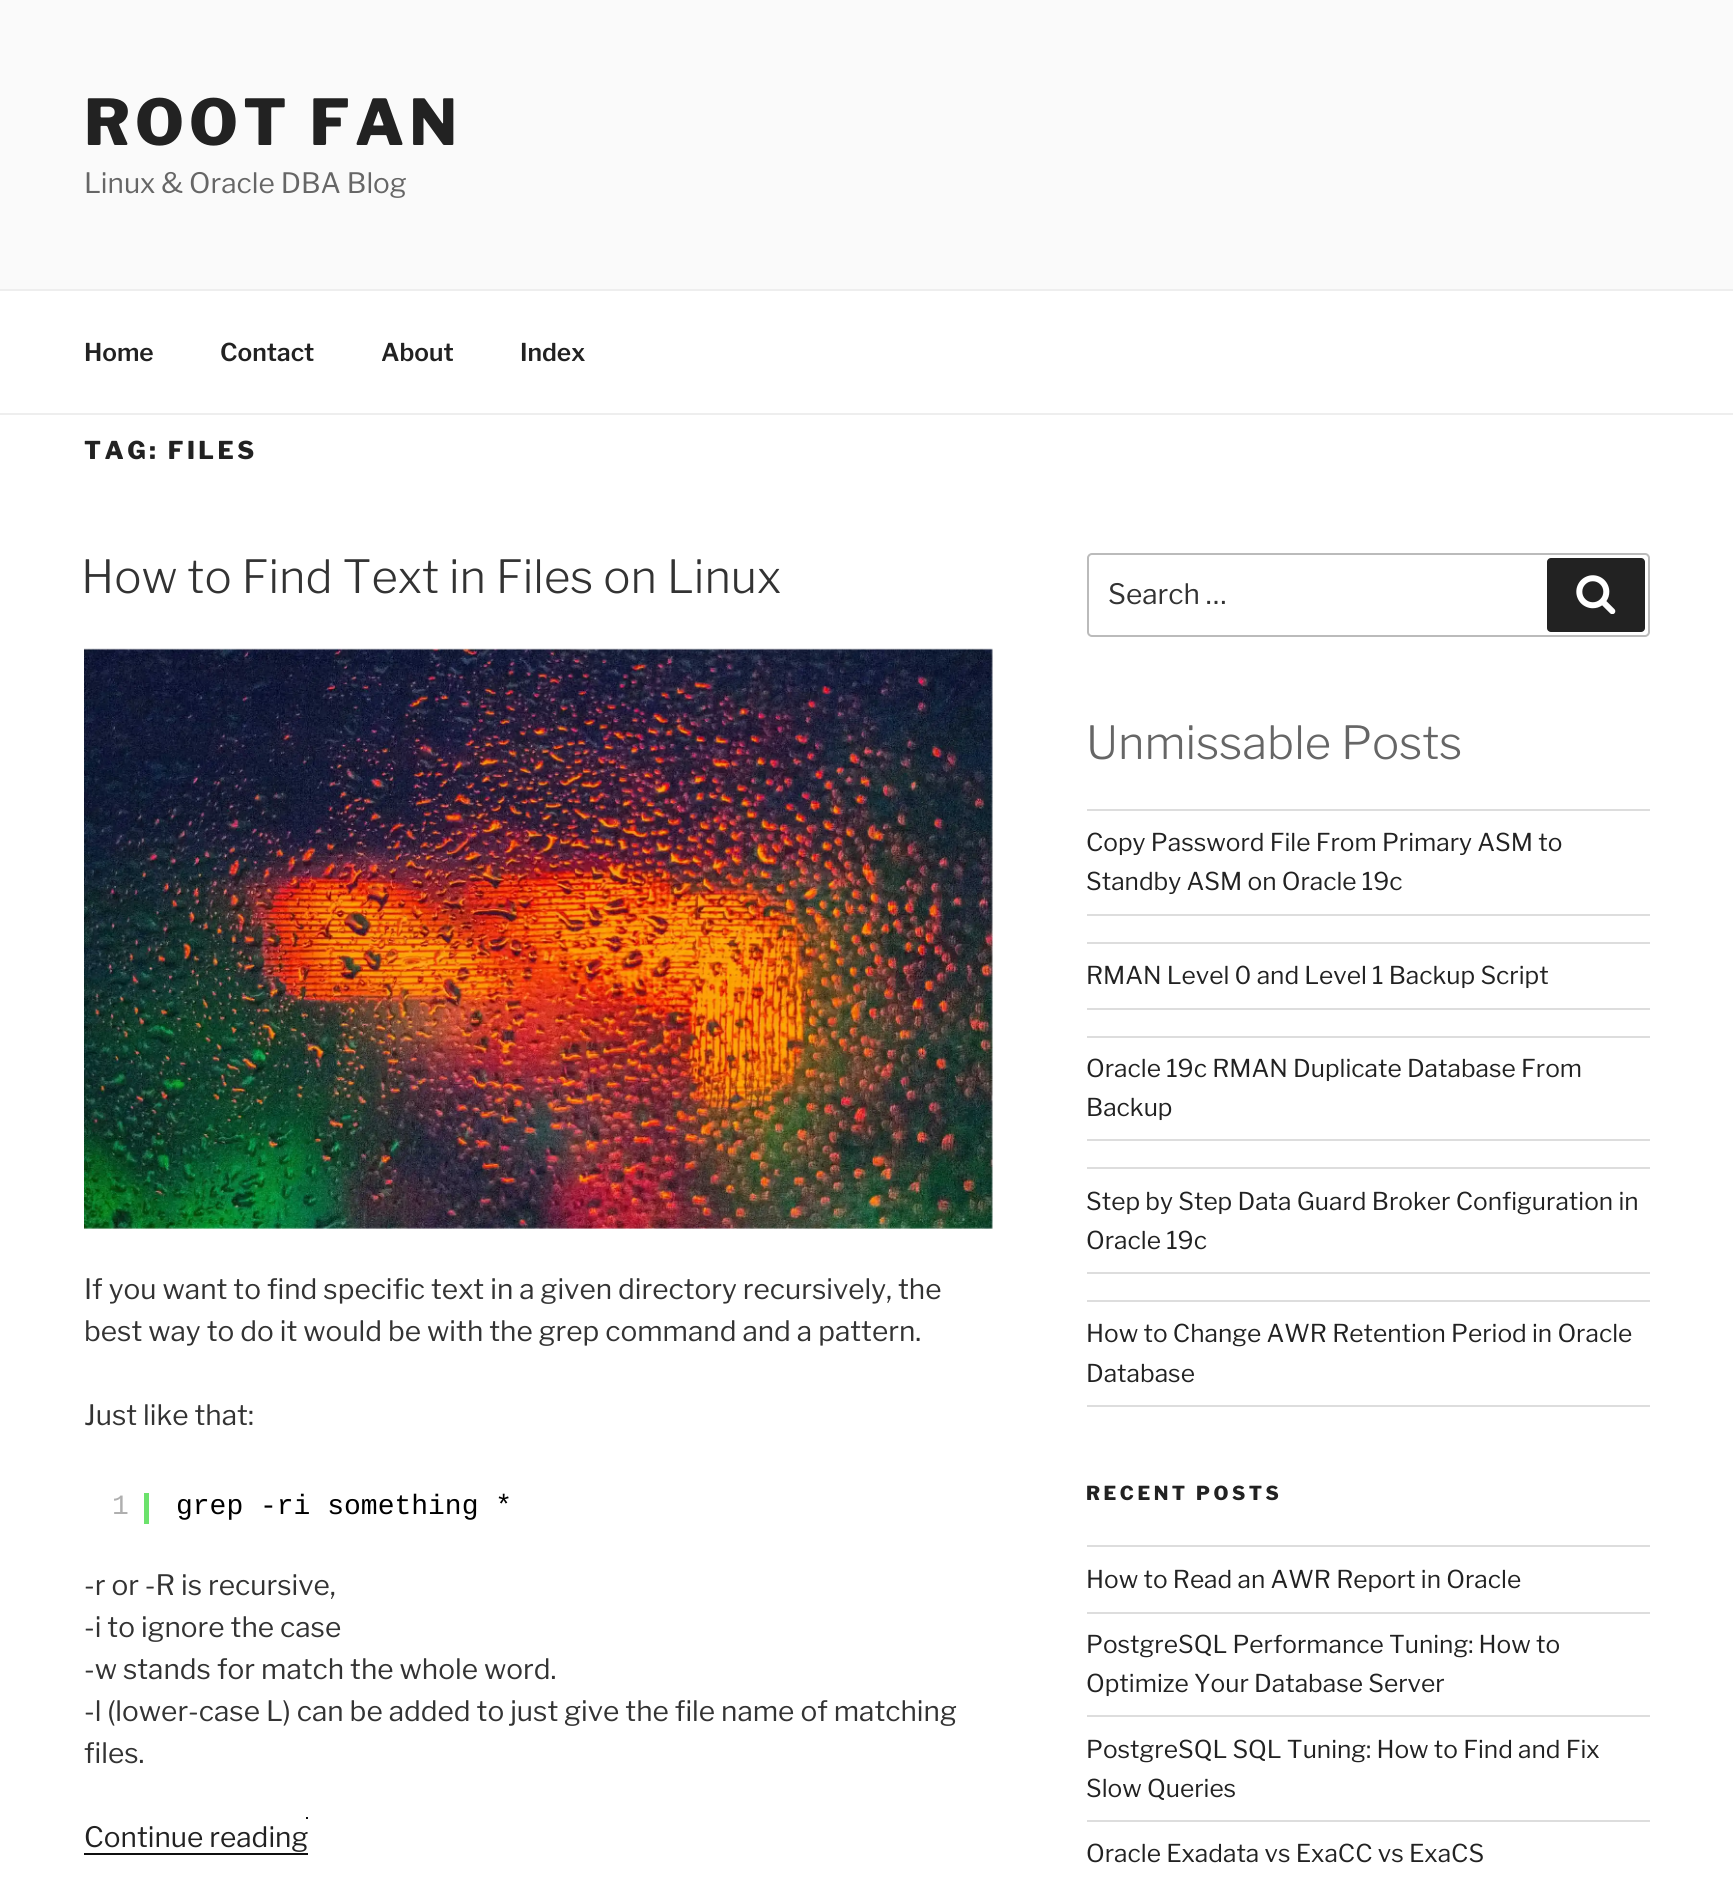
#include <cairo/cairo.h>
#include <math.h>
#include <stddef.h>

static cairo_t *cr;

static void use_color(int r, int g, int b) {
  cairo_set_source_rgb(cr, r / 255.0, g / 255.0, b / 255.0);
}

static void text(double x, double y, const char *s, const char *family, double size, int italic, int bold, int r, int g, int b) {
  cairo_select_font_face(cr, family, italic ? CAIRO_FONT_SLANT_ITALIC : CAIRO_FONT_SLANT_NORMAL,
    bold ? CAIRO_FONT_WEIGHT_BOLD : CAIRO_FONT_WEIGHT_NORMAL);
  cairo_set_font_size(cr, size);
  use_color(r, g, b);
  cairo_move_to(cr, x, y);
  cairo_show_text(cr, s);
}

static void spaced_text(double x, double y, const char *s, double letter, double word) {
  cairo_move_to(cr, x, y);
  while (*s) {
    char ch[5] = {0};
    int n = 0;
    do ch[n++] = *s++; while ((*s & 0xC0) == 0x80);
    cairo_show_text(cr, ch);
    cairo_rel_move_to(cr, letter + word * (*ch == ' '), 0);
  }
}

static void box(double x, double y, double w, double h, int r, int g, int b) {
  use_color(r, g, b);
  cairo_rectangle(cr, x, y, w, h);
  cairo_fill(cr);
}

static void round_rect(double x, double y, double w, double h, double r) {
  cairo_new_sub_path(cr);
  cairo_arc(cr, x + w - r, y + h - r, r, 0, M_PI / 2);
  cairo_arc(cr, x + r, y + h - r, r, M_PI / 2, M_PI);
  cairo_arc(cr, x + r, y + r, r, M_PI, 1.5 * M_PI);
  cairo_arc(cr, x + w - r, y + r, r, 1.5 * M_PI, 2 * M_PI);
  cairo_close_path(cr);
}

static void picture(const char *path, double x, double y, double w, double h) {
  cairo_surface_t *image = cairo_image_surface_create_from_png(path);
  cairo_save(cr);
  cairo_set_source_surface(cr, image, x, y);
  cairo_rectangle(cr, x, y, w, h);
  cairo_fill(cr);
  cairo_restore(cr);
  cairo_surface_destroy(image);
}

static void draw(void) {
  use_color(255, 255, 255);
  cairo_paint(cr);
  box(0, 0, 1733, 289, 250, 250, 250);
  box(0, 289, 1733, 2, 238, 238, 238);
  box(0, 413, 1733, 2, 238, 238, 238);
  picture("img_01.png", 84, 648, 909, 581);
  box(144, 1493, 5, 31, 108, 226, 108);
  box(84, 1853, 224, 2, 15, 15, 15);
  box(306, 1817, 2, 2, 15, 15, 15);
  round_rect(1088, 554, 561, 82, 4);
  use_color(187, 187, 187);
  cairo_stroke(cr);
  use_color(34, 34, 34);
  round_rect(1547, 558, 98, 74, 4);
  cairo_fill(cr);
  picture("img_02.png", 1576, 575, 40, 39);
  box(1087, 809, 563, 2, 221, 221, 221);
  box(1087, 914, 563, 2, 221, 221, 221);
  box(1087, 942, 563, 2, 221, 221, 221);
  box(1087, 1008, 563, 2, 221, 221, 221);
  box(1087, 1036, 563, 2, 221, 221, 221);
  box(1087, 1139, 563, 2, 221, 221, 221);
  box(1087, 1167, 563, 2, 221, 221, 221);
  box(1087, 1272, 563, 2, 221, 221, 221);
  box(1087, 1300, 563, 2, 221, 221, 221);
  box(1087, 1405, 563, 2, 221, 221, 221);
  box(1087, 1545, 563, 2, 221, 221, 221);
  box(1087, 1612, 563, 2, 221, 221, 221);
  box(1087, 1715, 563, 2, 221, 221, 221);
  box(1087, 1820, 563, 2, 221, 221, 221);
  cairo_select_font_face(cr, "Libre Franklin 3 Thin", CAIRO_FONT_SLANT_NORMAL, CAIRO_FONT_WEIGHT_NORMAL);
  cairo_set_font_size(cr, 63);
  use_color(34, 34, 34);
  spaced_text(84, 145, "ROOT FAN", 5, 0);
  text(84, 193, "Linux & Oracle DBA Blog", "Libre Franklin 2 Thin", 28, 0, 0, 102, 102, 102);
  text(84, 361, "Home", "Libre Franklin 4 Thin", 24.5, 0, 0, 34, 34, 34);
  text(220, 361, "Contact", "Libre Franklin 4 Thin", 24.5, 0, 0, 34, 34, 34);
  text(381, 361, "About", "Libre Franklin 4 Thin", 24.5, 0, 0, 34, 34, 34);
  text(520, 361, "Index", "Libre Franklin 4 Thin", 24.5, 0, 0, 34, 34, 34);
  cairo_select_font_face(cr, "Libre Franklin 3 Thin", CAIRO_FONT_SLANT_NORMAL, CAIRO_FONT_WEIGHT_NORMAL);
  spaced_text(84, 459, "TAG: FILES", 3.5, 0);
  text(81, 593, "How to Find Text in Files on Linux", "Libre Franklin Thin", 45.5, 0, 0, 51, 51, 51);
  text(84, 1299, "If you want to find specific text in a given directory recursively, the", "Libre Franklin 2 Thin", 28, 0, 0, 51, 51, 51);
  text(84, 1341, "best way to do it would be with the grep command and a pattern.", "Libre Franklin 2 Thin", 28, 0, 0, 51, 51, 51);
  text(84, 1425, "Just like that:", "Libre Franklin 2 Thin", 28, 0, 0, 51, 51, 51);
  text(112, 1514, "1", "Liberation Mono", 28, 0, 0, 175, 175, 175);
  text(176, 1514, "grep -ri something *", "Liberation Mono", 28, 0, 0, 0, 0, 0);
  text(84, 1595, "-r or -R is recursive,", "Libre Franklin 2 Thin", 28, 0, 0, 51, 51, 51);
  text(84, 1637, "-i to ignore the case", "Libre Franklin 2 Thin", 28, 0, 0, 51, 51, 51);
  text(84, 1679, "-w stands for match the whole word.", "Libre Franklin 2 Thin", 28, 0, 0, 51, 51, 51);
  text(84, 1721, "-l (lower-case L) can be added to just give the file name of matching", "Libre Franklin 2 Thin", 28, 0, 0, 51, 51, 51);
  text(84, 1763, "files.", "Libre Franklin 2 Thin", 28, 0, 0, 51, 51, 51);
  text(84, 1847, "Continue reading", "Libre Franklin 2 Thin", 28, 0, 0, 34, 34, 34);
  text(1108, 604, "Search …", "Libre Franklin 2 Thin", 28, 0, 0, 51, 51, 51);
  text(1086, 759, "Unmissable Posts", "Libre Franklin Thin", 45.5, 0, 0, 102, 102, 102);
  text(1086, 851, "Copy Password File From Primary ASM to", "Libre Franklin 2 Thin", 24.5, 0, 0, 34, 34, 34);
  text(1086, 890, "Standby ASM on Oracle 19c", "Libre Franklin 2 Thin", 24.5, 0, 0, 34, 34, 34);
  text(1086, 984, "RMAN Level 0 and Level 1 Backup Script", "Libre Franklin 2 Thin", 24.5, 0, 0, 34, 34, 34);
  text(1086, 1077, "Oracle 19c RMAN Duplicate Database From", "Libre Franklin 2 Thin", 24.5, 0, 0, 34, 34, 34);
  text(1086, 1116, "Backup", "Libre Franklin 2 Thin", 24.5, 0, 0, 34, 34, 34);
  text(1086, 1210, "Step by Step Data Guard Broker Configuration in", "Libre Franklin 2 Thin", 24.5, 0, 0, 34, 34, 34);
  text(1086, 1249, "Oracle 19c", "Libre Franklin 2 Thin", 24.5, 0, 0, 34, 34, 34);
  text(1086, 1342, "How to Change AWR Retention Period in Oracle", "Libre Franklin 2 Thin", 24.5, 0, 0, 34, 34, 34);
  text(1086, 1382, "Database", "Libre Franklin 2 Thin", 24.5, 0, 0, 34, 34, 34);
  cairo_select_font_face(cr, "Libre Franklin 3 Thin", CAIRO_FONT_SLANT_NORMAL, CAIRO_FONT_WEIGHT_NORMAL);
  cairo_set_font_size(cr, 19.25);
  spaced_text(1086, 1500, "RECENT POSTS", 3.5, 0);
  text(1086, 1588, "How to Read an AWR Report in Oracle", "Libre Franklin 2 Thin", 24.5, 0, 0, 34, 34, 34);
  text(1086, 1653, "PostgreSQL Performance Tuning: How to", "Libre Franklin 2 Thin", 24.5, 0, 0, 34, 34, 34);
  text(1086, 1692, "Optimize Your Database Server", "Libre Franklin 2 Thin", 24.5, 0, 0, 34, 34, 34);
  text(1086, 1758, "PostgreSQL SQL Tuning: How to Find and Fix", "Libre Franklin 2 Thin", 24.5, 0, 0, 34, 34, 34);
  text(1086, 1797, "Slow Queries", "Libre Franklin 2 Thin", 24.5, 0, 0, 34, 34, 34);
  text(1086, 1862, "Oracle Exadata vs ExaCC vs ExaCS", "Libre Franklin 2 Thin", 24.5, 0, 0, 34, 34, 34);
}

int main(void) {
  cairo_surface_t *surface = cairo_image_surface_create(CAIRO_FORMAT_RGB24, 1733, 1880);
  cr = cairo_create(surface);
  cairo_font_options_t *options = cairo_font_options_create();
  cairo_font_options_set_hint_metrics(options, CAIRO_HINT_METRICS_OFF);
  cairo_font_options_set_hint_style(options, CAIRO_HINT_STYLE_NONE);
  cairo_set_font_options(cr, options);
  cairo_set_miter_limit(cr, 4);
  draw();
  cairo_surface_write_to_png(surface, "out.png");
  cairo_font_options_destroy(options);
  cairo_destroy(cr);
  cairo_surface_destroy(surface);
  return 0;
}
